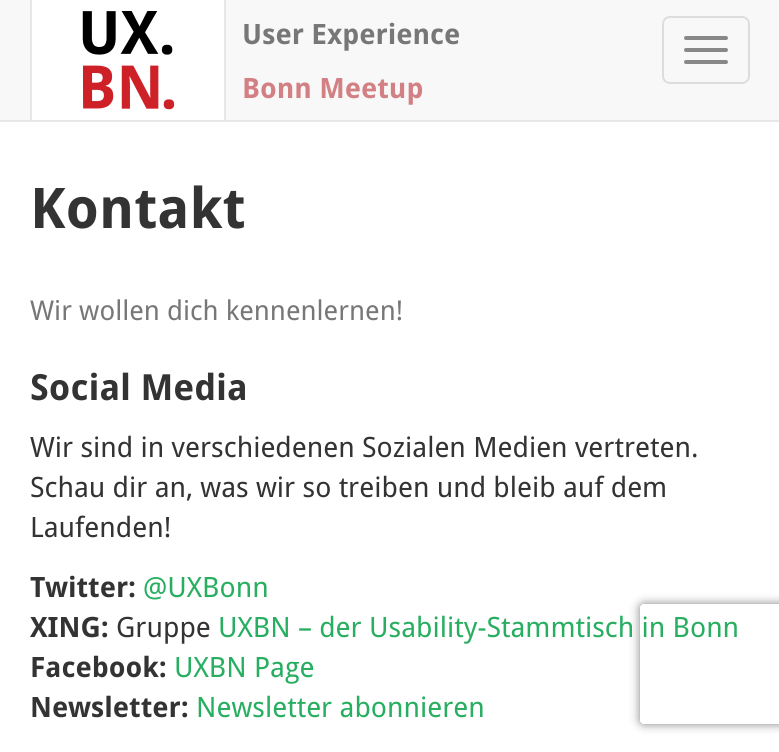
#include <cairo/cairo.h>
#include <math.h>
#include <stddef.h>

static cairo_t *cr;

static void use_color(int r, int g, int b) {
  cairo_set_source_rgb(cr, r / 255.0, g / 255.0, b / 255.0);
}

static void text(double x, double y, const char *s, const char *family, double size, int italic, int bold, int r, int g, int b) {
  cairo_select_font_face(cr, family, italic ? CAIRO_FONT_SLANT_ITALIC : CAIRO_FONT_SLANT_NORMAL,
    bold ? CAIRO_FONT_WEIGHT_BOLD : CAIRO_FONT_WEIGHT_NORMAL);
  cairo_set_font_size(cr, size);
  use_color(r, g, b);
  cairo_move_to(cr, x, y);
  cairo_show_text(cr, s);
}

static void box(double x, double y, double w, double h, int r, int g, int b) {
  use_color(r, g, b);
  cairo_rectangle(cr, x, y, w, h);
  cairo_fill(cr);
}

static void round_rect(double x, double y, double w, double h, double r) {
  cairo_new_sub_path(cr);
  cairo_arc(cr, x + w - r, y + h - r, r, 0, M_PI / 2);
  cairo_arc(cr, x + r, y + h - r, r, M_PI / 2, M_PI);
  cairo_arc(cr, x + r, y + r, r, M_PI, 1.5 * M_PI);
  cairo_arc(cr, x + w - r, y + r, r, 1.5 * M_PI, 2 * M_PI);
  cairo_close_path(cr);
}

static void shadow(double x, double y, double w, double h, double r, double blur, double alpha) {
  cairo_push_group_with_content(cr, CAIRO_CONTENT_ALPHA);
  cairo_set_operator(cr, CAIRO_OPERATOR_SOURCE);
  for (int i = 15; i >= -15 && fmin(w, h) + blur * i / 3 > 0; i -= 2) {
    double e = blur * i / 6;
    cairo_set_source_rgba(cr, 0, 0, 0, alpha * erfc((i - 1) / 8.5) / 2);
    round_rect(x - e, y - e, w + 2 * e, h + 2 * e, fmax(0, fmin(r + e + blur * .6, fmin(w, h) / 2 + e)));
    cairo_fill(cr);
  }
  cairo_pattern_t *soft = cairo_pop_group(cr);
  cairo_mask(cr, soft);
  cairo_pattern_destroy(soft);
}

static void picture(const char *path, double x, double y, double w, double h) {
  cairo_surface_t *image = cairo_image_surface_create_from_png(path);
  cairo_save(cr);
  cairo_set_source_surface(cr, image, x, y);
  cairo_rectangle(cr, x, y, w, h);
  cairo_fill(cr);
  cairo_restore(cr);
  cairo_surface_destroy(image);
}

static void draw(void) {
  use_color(255, 255, 255);
  cairo_paint(cr);
  box(0, 0, 779, 120, 248, 248, 248);
  box(0, 120, 779, 2, 231, 231, 231);
  box(32, 0, 192, 120, 255, 255, 255);
  box(224, 0, 2, 120, 231, 231, 231);
  box(30, 0, 2, 120, 231, 231, 231);
  picture("img_01.png", 82, 11, 93, 99);
  round_rect(663, 17, 86, 66, 7);
  use_color(221, 221, 221);
  cairo_stroke(cr);
  use_color(136, 136, 136);
  round_rect(684, 36, 44, 4, 2);
  cairo_fill(cr);
  round_rect(684, 48, 44, 4, 2);
  cairo_fill(cr);
  round_rect(684, 60, 44, 4, 2);
  cairo_fill(cr);
  cairo_save(cr);
  cairo_set_fill_rule(cr, CAIRO_FILL_RULE_EVEN_ODD);
  cairo_new_path(cr);
  cairo_move_to(cr, 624, 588);
  cairo_line_to(cr, 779, 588);
  cairo_line_to(cr, 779, 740);
  cairo_line_to(cr, 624, 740);
  cairo_close_path(cr);
  cairo_move_to(cr, 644, 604);
  cairo_line_to(cr, 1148, 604);
  cairo_curve_to(cr, 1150, 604, 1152, 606, 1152, 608);
  cairo_line_to(cr, 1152, 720);
  cairo_curve_to(cr, 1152, 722, 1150, 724, 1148, 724);
  cairo_line_to(cr, 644, 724);
  cairo_curve_to(cr, 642, 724, 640, 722, 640, 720);
  cairo_line_to(cr, 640, 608);
  cairo_curve_to(cr, 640, 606, 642, 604, 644, 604);
  cairo_close_path(cr);
  cairo_clip(cr);
  use_color(128, 128, 128);
  shadow(640, 604, 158, 120, 4, 5, 1);
  cairo_restore(cr);
  text(242, 44, "User Experience", "Droid Sans", 28, 0, 1, 119, 119, 119);
  text(242, 98, "Bonn Meetup", "Droid Sans", 28, 0, 1, 210, 128, 131);
  text(30, 228, "Kontakt", "Droid Sans", 56, 0, 1, 51, 51, 51);
  text(30, 320, "Wir wollen dich kennenlernen!", "Droid Sans", 27.25, 0, 0, 119, 119, 119);
  text(30, 400, "Social Media", "Droid Sans", 36, 0, 1, 51, 51, 51);
  text(30, 457, "Wir sind in verschiedenen Sozialen Medien vertreten.", "Droid Sans", 28, 0, 0, 51, 51, 51);
  text(30, 497, "Schau dir an, was wir so treiben und bleib auf dem", "Droid Sans", 28, 0, 0, 51, 51, 51);
  text(30, 537, "Laufenden!", "Droid Sans", 28, 0, 0, 51, 51, 51);
  text(30, 597, "Twitter:", "Droid Sans", 28, 0, 1, 51, 51, 51);
  text(143, 597, "@UXBonn", "Droid Sans", 28, 0, 0, 39, 174, 96);
  text(30, 637, "XING:", "Droid Sans", 28, 0, 1, 51, 51, 51);
  text(116, 637, "Gruppe", "Droid Sans", 28, 0, 0, 51, 51, 51);
  text(218, 637, "UXBN – der Usability-Stammtisch in Bonn", "Droid Sans", 28, 0, 0, 39, 174, 96);
  text(30, 677, "Facebook:", "Droid Sans", 28, 0, 1, 51, 51, 51);
  text(174, 677, "UXBN Page", "Droid Sans", 28, 0, 0, 39, 174, 96);
  text(30, 717, "Newsletter:", "Droid Sans", 28, 0, 1, 51, 51, 51);
  text(196, 717, "Newsletter abonnieren", "Droid Sans", 28, 0, 0, 39, 174, 96);
}

int main(void) {
  cairo_surface_t *surface = cairo_image_surface_create(CAIRO_FORMAT_RGB24, 779, 752);
  cr = cairo_create(surface);
  cairo_font_options_t *options = cairo_font_options_create();
  cairo_font_options_set_hint_metrics(options, CAIRO_HINT_METRICS_OFF);
  cairo_font_options_set_hint_style(options, CAIRO_HINT_STYLE_NONE);
  cairo_set_font_options(cr, options);
  cairo_set_miter_limit(cr, 4);
  draw();
  cairo_surface_write_to_png(surface, "out.png");
  cairo_font_options_destroy(options);
  cairo_destroy(cr);
  cairo_surface_destroy(surface);
  return 0;
}
